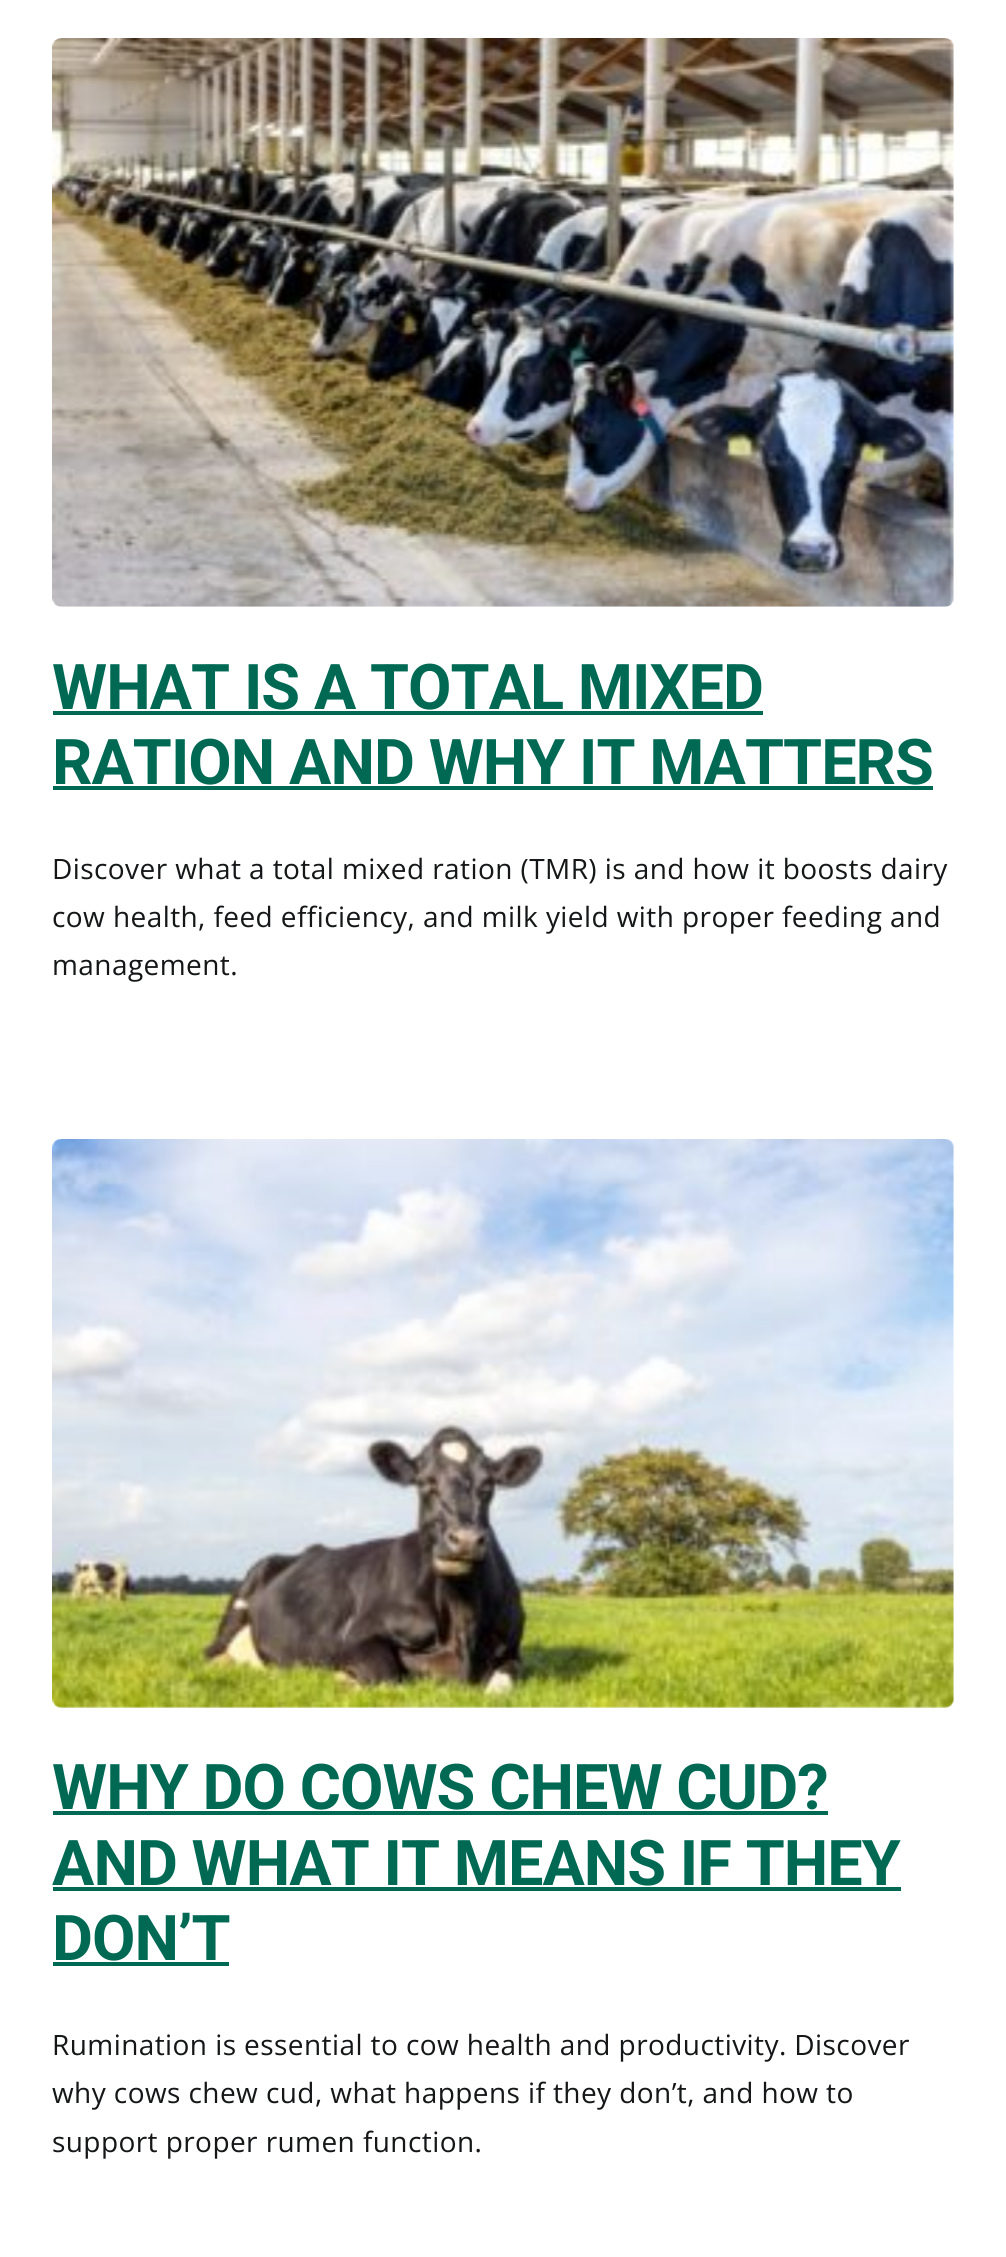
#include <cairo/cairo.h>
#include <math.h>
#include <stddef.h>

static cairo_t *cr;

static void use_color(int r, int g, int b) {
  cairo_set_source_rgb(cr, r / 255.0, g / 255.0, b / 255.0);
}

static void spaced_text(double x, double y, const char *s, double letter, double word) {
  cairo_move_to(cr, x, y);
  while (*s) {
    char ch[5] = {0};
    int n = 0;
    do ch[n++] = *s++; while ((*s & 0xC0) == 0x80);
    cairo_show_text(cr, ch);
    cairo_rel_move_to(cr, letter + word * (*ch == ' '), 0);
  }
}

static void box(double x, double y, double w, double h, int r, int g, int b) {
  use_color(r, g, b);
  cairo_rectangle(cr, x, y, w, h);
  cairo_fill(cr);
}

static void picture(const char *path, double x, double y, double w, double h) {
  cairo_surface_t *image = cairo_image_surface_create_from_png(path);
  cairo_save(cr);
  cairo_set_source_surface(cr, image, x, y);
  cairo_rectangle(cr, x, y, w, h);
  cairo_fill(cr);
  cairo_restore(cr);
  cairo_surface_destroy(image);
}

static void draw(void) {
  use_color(255, 255, 255);
  cairo_paint(cr);
  picture("img_01.png", 52, 38, 902, 569);
  box(53, 711, 710, 4, 0, 105, 84);
  box(53, 786, 880, 4, 0, 105, 84);
  picture("img_02.png", 52, 1139, 902, 569);
  box(53, 1811, 775, 4, 0, 105, 84);
  box(53, 1887, 848, 4, 0, 105, 84);
  box(53, 1962, 176, 4, 0, 105, 84);
  cairo_select_font_face(cr, "Roboto", CAIRO_FONT_SLANT_NORMAL, CAIRO_FONT_WEIGHT_BOLD);
  cairo_set_font_size(cr, 63);
  spaced_text(52, 709, "WHAT IS A TOTAL MIXED", -0.95, 0);
  spaced_text(52, 784, "RATION AND WHY IT MATTERS", -0.95, 0);
  cairo_select_font_face(cr, "Open Sans", CAIRO_FONT_SLANT_NORMAL, CAIRO_FONT_WEIGHT_NORMAL);
  cairo_set_font_size(cr, 28);
  use_color(20, 22, 23);
  spaced_text(52, 879, "Discover what a total mixed ration (TMR) is and how it boosts dairy", 0.42, 0);
  spaced_text(52, 927, "cow health, feed efficiency, and milk yield with proper feeding and", 0.42, 0);
  spaced_text(52, 975, "management.", 0.42, 0);
  cairo_select_font_face(cr, "Roboto", CAIRO_FONT_SLANT_NORMAL, CAIRO_FONT_WEIGHT_BOLD);
  cairo_set_font_size(cr, 63);
  use_color(0, 105, 84);
  spaced_text(52, 1809, "WHY DO COWS CHEW CUD?", -0.95, 0);
  spaced_text(52, 1885, "AND WHAT IT MEANS IF THEY", -0.95, 0);
  spaced_text(52, 1960, "DON’T", -0.95, 0);
  cairo_select_font_face(cr, "Open Sans", CAIRO_FONT_SLANT_NORMAL, CAIRO_FONT_WEIGHT_NORMAL);
  cairo_set_font_size(cr, 28);
  use_color(20, 22, 23);
  spaced_text(52, 2055, "Rumination is essential to cow health and productivity. Discover", 0.42, 0);
  spaced_text(52, 2103, "why cows chew cud, what happens if they don’t, and how to", 0.42, 0);
  spaced_text(52, 2152, "support proper rumen function.", 0.42, 0);
}

int main(void) {
  cairo_surface_t *surface = cairo_image_surface_create(CAIRO_FORMAT_RGB24, 1006, 2257);
  cr = cairo_create(surface);
  cairo_font_options_t *options = cairo_font_options_create();
  cairo_font_options_set_hint_metrics(options, CAIRO_HINT_METRICS_OFF);
  cairo_font_options_set_hint_style(options, CAIRO_HINT_STYLE_NONE);
  cairo_set_font_options(cr, options);
  cairo_set_miter_limit(cr, 4);
  draw();
  cairo_surface_write_to_png(surface, "out.png");
  cairo_font_options_destroy(options);
  cairo_destroy(cr);
  cairo_surface_destroy(surface);
  return 0;
}
